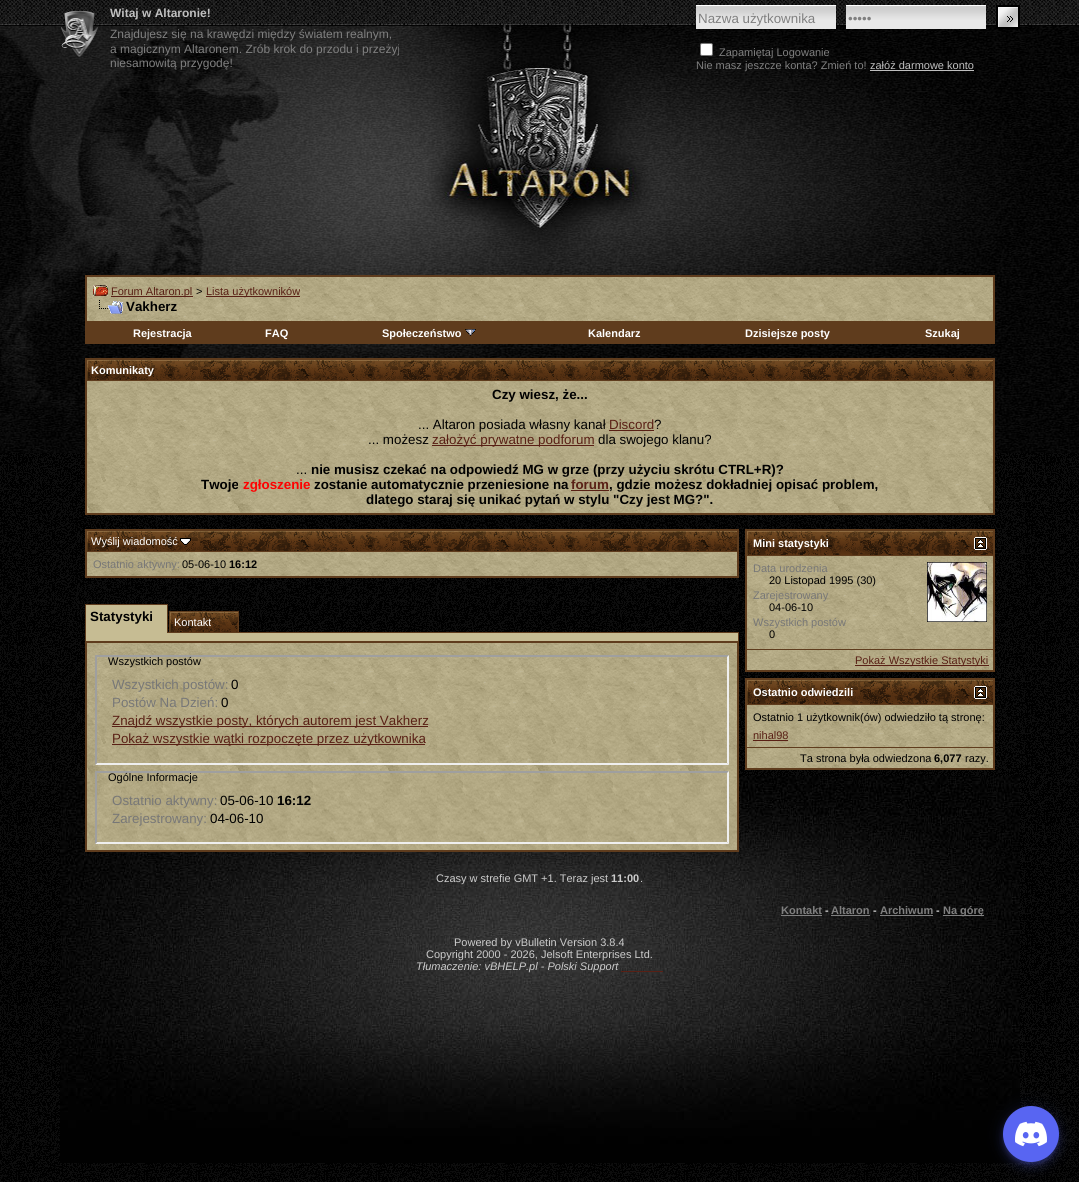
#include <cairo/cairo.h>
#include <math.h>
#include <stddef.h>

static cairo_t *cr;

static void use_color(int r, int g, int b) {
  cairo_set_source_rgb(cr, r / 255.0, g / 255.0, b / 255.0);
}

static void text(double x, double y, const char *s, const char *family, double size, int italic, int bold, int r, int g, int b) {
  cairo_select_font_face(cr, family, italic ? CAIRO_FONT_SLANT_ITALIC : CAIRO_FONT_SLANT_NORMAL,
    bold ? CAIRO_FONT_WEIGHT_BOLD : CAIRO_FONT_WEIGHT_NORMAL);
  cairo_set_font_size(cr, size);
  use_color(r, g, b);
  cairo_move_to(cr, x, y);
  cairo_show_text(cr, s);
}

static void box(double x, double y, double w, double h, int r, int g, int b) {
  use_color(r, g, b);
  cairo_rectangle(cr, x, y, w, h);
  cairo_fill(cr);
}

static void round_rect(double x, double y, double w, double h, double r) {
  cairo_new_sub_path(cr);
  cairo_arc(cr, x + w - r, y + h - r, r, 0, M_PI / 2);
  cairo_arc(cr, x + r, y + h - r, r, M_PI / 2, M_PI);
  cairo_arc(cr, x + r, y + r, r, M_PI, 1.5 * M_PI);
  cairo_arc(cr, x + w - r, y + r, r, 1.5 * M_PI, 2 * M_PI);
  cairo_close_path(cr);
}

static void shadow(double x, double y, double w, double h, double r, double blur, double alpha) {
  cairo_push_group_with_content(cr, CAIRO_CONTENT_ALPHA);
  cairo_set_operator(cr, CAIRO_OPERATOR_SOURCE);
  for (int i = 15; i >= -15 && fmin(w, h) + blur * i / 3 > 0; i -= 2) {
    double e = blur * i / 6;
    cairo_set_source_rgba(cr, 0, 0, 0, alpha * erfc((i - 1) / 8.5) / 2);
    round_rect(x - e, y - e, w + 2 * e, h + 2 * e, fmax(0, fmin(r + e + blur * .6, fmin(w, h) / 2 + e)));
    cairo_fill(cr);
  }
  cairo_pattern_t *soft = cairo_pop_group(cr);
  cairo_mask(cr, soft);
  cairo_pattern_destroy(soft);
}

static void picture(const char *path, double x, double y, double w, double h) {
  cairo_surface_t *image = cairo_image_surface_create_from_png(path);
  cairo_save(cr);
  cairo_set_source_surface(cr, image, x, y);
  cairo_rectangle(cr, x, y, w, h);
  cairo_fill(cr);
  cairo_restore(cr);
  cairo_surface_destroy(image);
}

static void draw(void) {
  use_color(255, 255, 255);
  cairo_paint(cr);
  picture("img_01.png", 0, 453, 1079, 729);
  picture("img_02.png", 0, 25, 1079, 428);
  picture("img_03.png", 0, 0, 1079, 25);
  picture("img_04.png", 60, 776, 960, 387);
  picture("img_05.png", 61, 11, 37, 46);
  picture("img_06.png", 696, 5, 140, 24);
  picture("img_06.png", 846, 5, 140, 24);
  picture("img_07.png", 998, 7, 20, 20);
  cairo_rectangle(cr, 997, 6, 22, 22);
  use_color(0, 0, 0);
  cairo_stroke(cr);
  use_color(255, 255, 255);
  round_rect(700.5, 43.5, 12, 12, 1.5);
  cairo_fill_preserve(cr);
  use_color(118, 118, 118);
  cairo_set_line_width(cr, 1);
  cairo_stroke(cr);
  box(870, 70, 104, 1, 191, 191, 191);
  box(85, 275, 910, 48, 95, 60, 29);
  picture("img_08.png", 87, 277, 906, 44);
  picture("img_09.png", 93, 285, 15, 11);
  box(111, 296, 82, 1, 89, 32, 21);
  box(206, 296, 94, 1, 89, 32, 21);
  picture("img_10.png", 99, 300, 24, 14);
  box(86, 323, 908, 20, 95, 60, 29);
  box(994, 323, 1, 21, 95, 60, 29);
  box(85, 343, 910, 1, 95, 60, 29);
  box(85, 323, 1, 21, 95, 60, 29);
  picture("img_11.png", 465, 329, 11, 7);
  box(85, 358, 910, 157, 95, 60, 29);
  picture("img_12.png", 87, 360, 906, 20);
  picture("img_13.png", 87, 381, 906, 132);
  box(609, 430, 45, 1, 89, 32, 21);
  box(432, 445, 162, 1, 89, 32, 21);
  box(571, 490, 38, 1, 89, 32, 21);
  box(85, 529, 654, 49, 95, 60, 29);
  picture("img_14.png", 87, 531, 650, 20);
  picture("img_15.png", 180, 538, 11, 7);
  picture("img_16.png", 87, 552, 650, 24);
  box(86, 605, 81, 28, 198, 188, 147);
  box(85, 604, 83, 1, 95, 60, 29);
  box(167, 604, 1, 29, 95, 60, 29);
  box(85, 632, 1, 9, 95, 60, 29);
  box(85, 604, 1, 29, 95, 60, 29);
  picture("img_17.png", 170, 612, 68, 20);
  box(168, 632, 571, 1, 95, 60, 29);
  cairo_rectangle(cr, 169.5, 611.5, 69, 21);
  cairo_stroke(cr);
  box(86, 633, 652, 8, 198, 188, 147);
  box(738, 632, 1, 9, 95, 60, 29);
  box(85, 641, 654, 211, 95, 60, 29);
  picture("img_18.png", 87, 643, 650, 207);
  use_color(159, 159, 159);
  cairo_new_path(cr);
  cairo_move_to(cr, 95, 655);
  cairo_line_to(cr, 729, 655);
  cairo_line_to(cr, 727, 657);
  cairo_line_to(cr, 97, 657);
  cairo_close_path(cr);
  cairo_fill(cr);
  use_color(239, 239, 239);
  cairo_new_path(cr);
  cairo_move_to(cr, 729, 655);
  cairo_line_to(cr, 729, 765);
  cairo_line_to(cr, 727, 763);
  cairo_line_to(cr, 727, 657);
  cairo_close_path(cr);
  cairo_fill(cr);
  cairo_new_path(cr);
  cairo_move_to(cr, 729, 765);
  cairo_line_to(cr, 95, 765);
  cairo_line_to(cr, 97, 763);
  cairo_line_to(cr, 727, 763);
  cairo_close_path(cr);
  cairo_fill(cr);
  use_color(159, 159, 159);
  cairo_new_path(cr);
  cairo_move_to(cr, 95, 765);
  cairo_line_to(cr, 95, 655);
  cairo_line_to(cr, 97, 657);
  cairo_line_to(cr, 97, 763);
  cairo_close_path(cr);
  cairo_fill(cr);
  box(112, 726, 316, 1, 89, 32, 21);
  box(112, 744, 313, 1, 89, 32, 21);
  use_color(159, 159, 159);
  cairo_new_path(cr);
  cairo_move_to(cr, 95, 771);
  cairo_line_to(cr, 729, 771);
  cairo_line_to(cr, 727, 773);
  cairo_line_to(cr, 97, 773);
  cairo_close_path(cr);
  cairo_fill(cr);
  use_color(239, 239, 239);
  cairo_new_path(cr);
  cairo_move_to(cr, 729, 771);
  cairo_line_to(cr, 729, 844);
  cairo_line_to(cr, 727, 842);
  cairo_line_to(cr, 727, 773);
  cairo_close_path(cr);
  cairo_fill(cr);
  cairo_new_path(cr);
  cairo_move_to(cr, 729, 844);
  cairo_line_to(cr, 95, 844);
  cairo_line_to(cr, 97, 842);
  cairo_line_to(cr, 727, 842);
  cairo_close_path(cr);
  cairo_fill(cr);
  use_color(159, 159, 159);
  cairo_new_path(cr);
  cairo_move_to(cr, 95, 844);
  cairo_line_to(cr, 95, 771);
  cairo_line_to(cr, 97, 773);
  cairo_line_to(cr, 97, 842);
  cairo_close_path(cr);
  cairo_fill(cr);
  box(745, 529, 250, 143, 95, 60, 29);
  picture("img_19.png", 747, 531, 246, 24);
  picture("img_20.png", 974, 537, 13, 13);
  picture("img_21.png", 747, 556, 246, 93);
  picture("img_22.png", 927, 562, 60, 60);
  picture("img_23.png", 747, 650, 246, 20);
  box(855, 665, 134, 1, 89, 32, 21);
  box(745, 678, 250, 92, 95, 60, 29);
  picture("img_19.png", 747, 680, 246, 24);
  picture("img_20.png", 974, 686, 13, 13);
  picture("img_24.png", 747, 705, 246, 42);
  box(753, 740, 35, 1, 89, 32, 21);
  picture("img_23.png", 747, 748, 246, 20);
  box(781, 915, 41, 1, 128, 128, 128);
  box(831, 915, 39, 1, 128, 128, 128);
  box(880, 915, 53, 1, 128, 128, 128);
  box(943, 915, 41, 1, 128, 128, 128);
  box(621, 971, 42, 1, 89, 32, 21);
  use_color(88, 101, 242);
  shadow(1003, 1107, 56, 56, 28, 9, 0.12);
  shadow(1003, 1112, 56, 56, 28, 5, 0.14);
  shadow(1004, 1110, 54, 54, 27, 2.5, 0.3);
  use_color(88, 101, 242);
  cairo_arc(cr, 1031, 1134, 28, 0, 2 * M_PI);
  cairo_fill(cr);
  picture("img_25.png", 1015, 1121, 32, 26);
  text(110, 17, "Witaj w Altaronie!", "Liberation Sans", 12, 0, 1, 191, 191, 191);
  text(110, 38, "Znajdujesz się na krawędzi między światem realnym,", "Liberation Sans", 12, 0, 0, 128, 128, 128);
  text(110, 53, "a magicznym Altaronem. Zrób krok do przodu i przeżyj", "Liberation Sans", 12, 0, 0, 128, 128, 128);
  text(110, 67, "niesamowitą przygodę!", "Liberation Sans", 12, 0, 0, 128, 128, 128);
  text(698, 23, "Nazwa użytkownika", "Liberation Sans", 13.35, 0, 0, 128, 128, 128);
  text(848, 23, "•••••", "Liberation Sans", 13.35, 0, 0, 128, 128, 128);
  text(719, 56, "Zapamiętaj Logowanie", "Liberation Sans", 11, 0, 0, 128, 128, 128);
  text(696, 69, "Nie masz jeszcze konta? Zmień to!", "Liberation Sans", 11, 0, 0, 128, 128, 128);
  text(870, 69, "załóż darmowe konto", "Liberation Sans", 11, 0, 0, 191, 191, 191);
  text(111, 295, "Forum Altaron.pl", "Liberation Sans", 11, 0, 0, 89, 32, 21);
  text(196, 295, ">", "Liberation Sans", 11, 0, 0, 0, 0, 0);
  text(206, 295, "Lista użytkowników", "Liberation Sans", 11, 0, 0, 89, 32, 21);
  text(126, 311, "Vakherz", "Liberation Sans", 13.35, 0, 1, 0, 0, 0);
  text(133, 337, "Rejestracja", "Liberation Sans", 11, 0, 1, 255, 255, 255);
  text(265, 337, "FAQ", "Liberation Sans", 11, 0, 1, 255, 255, 255);
  text(382, 337, "Społeczeństwo", "Liberation Sans", 11, 0, 1, 255, 255, 255);
  text(588, 337, "Kalendarz", "Liberation Sans", 11, 0, 1, 255, 255, 255);
  text(745, 337, "Dzisiejsze posty", "Liberation Sans", 11, 0, 1, 255, 255, 255);
  text(925, 337, "Szukaj", "Liberation Sans", 11, 0, 1, 255, 255, 255);
  text(91, 374, "Komunikaty", "Liberation Sans", 11, 0, 1, 255, 255, 255);
  text(492, 399, "Czy wiesz, że...", "Liberation Sans", 13.35, 0, 1, 0, 0, 0);
  text(418, 429, "... Altaron posiada własny kanał", "Liberation Sans", 13.35, 0, 0, 0, 0, 0);
  text(609, 429, "Discord", "Liberation Sans", 13.35, 0, 0, 89, 32, 21);
  text(654, 429, "?", "Liberation Sans", 13.35, 0, 0, 0, 0, 0);
  text(368, 444, "... możesz", "Liberation Sans", 13.35, 0, 0, 0, 0, 0);
  text(432, 444, "założyć prywatne podforum", "Liberation Sans", 13.35, 0, 0, 89, 32, 21);
  text(598, 444, "dla swojego klanu?", "Liberation Sans", 13.35, 0, 0, 0, 0, 0);
  text(296, 474, "...", "Liberation Sans", 13.35, 0, 0, 0, 0, 0);
  text(311, 474, "nie musisz czekać na odpowiedź MG w grze (przy użyciu skrótu CTRL+R)?", "Liberation Sans", 13.35, 0, 1, 0, 0, 0);
  text(201, 489, "Twoje", "Liberation Sans", 13.35, 0, 1, 0, 0, 0);
  text(243, 489, "zgłoszenie", "Liberation Sans", 13.35, 0, 1, 255, 0, 0);
  text(314, 489, "zostanie automatycznie przeniesione na", "Liberation Sans", 13.35, 0, 1, 0, 0, 0);
  text(571, 489, "forum", "Liberation Sans", 13.35, 0, 1, 89, 32, 21);
  text(609, 489, ", gdzie możesz dokładniej opisać problem,", "Liberation Sans", 13.35, 0, 1, 0, 0, 0);
  text(366, 504, "dlatego staraj się unikać pytań w stylu \"Czy jest MG?\".", "Liberation Sans", 13.35, 0, 1, 0, 0, 0);
  text(91, 545, "Wyślij wiadomość", "Liberation Sans", 11, 0, 0, 255, 255, 255);
  text(93, 568, "Ostatnio aktywny:", "Liberation Sans", 11, 0, 0, 119, 119, 119);
  text(182, 568, "05-06-10", "Liberation Sans", 11, 0, 0, 0, 0, 0);
  text(229, 568, "16:12", "Liberation Sans", 11, 0, 1, 0, 0, 0);
  text(90, 621, "Statystyki", "Liberation Sans", 13.35, 0, 1, 0, 0, 0);
  text(174, 626, "Kontakt", "Liberation Sans", 11, 0, 0, 255, 255, 255);
  text(108, 665, "Wszystkich postów", "Liberation Sans", 11, 0, 0, 0, 0, 0);
  text(112, 689, "Wszystkich postów:", "Liberation Sans", 13.35, 0, 0, 119, 119, 119);
  text(231, 689, "0", "Liberation Sans", 13.35, 0, 0, 0, 0, 0);
  text(112, 707, "Postów Na Dzień:", "Liberation Sans", 13.35, 0, 0, 119, 119, 119);
  text(221, 707, "0", "Liberation Sans", 13.35, 0, 0, 0, 0, 0);
  text(112, 725, "Znajdź wszystkie posty, których autorem jest Vakherz", "Liberation Sans", 13.35, 0, 0, 89, 32, 21);
  text(112, 743, "Pokaż wszystkie wątki rozpoczęte przez użytkownika", "Liberation Sans", 13.35, 0, 0, 89, 32, 21);
  text(108, 781, "Ogólne Informacje", "Liberation Sans", 11, 0, 0, 0, 0, 0);
  text(112, 805, "Ostatnio aktywny:", "Liberation Sans", 13.35, 0, 0, 119, 119, 119);
  text(220, 805, "05-06-10", "Liberation Sans", 13.35, 0, 0, 0, 0, 0);
  text(277, 805, "16:12", "Liberation Sans", 13.35, 0, 1, 0, 0, 0);
  text(112, 823, "Zarejestrowany:", "Liberation Sans", 13.35, 0, 0, 119, 119, 119);
  text(210, 823, "04-06-10", "Liberation Sans", 13.35, 0, 0, 0, 0, 0);
  text(753, 547, "Mini statystyki", "Liberation Sans", 11, 0, 1, 255, 255, 255);
  text(753, 572, "Data urodzenia", "Liberation Sans", 11, 0, 0, 119, 119, 119);
  text(769, 584, "20 Listopad 1995 (30)", "Liberation Sans", 11, 0, 0, 0, 0, 0);
  text(753, 599, "Zarejestrowany", "Liberation Sans", 11, 0, 0, 119, 119, 119);
  text(769, 611, "04-06-10", "Liberation Sans", 11, 0, 0, 0, 0, 0);
  text(753, 626, "Wszystkich postów", "Liberation Sans", 11, 0, 0, 119, 119, 119);
  text(769, 638, "0", "Liberation Sans", 11, 0, 0, 0, 0, 0);
  text(855, 664, "Pokaż Wszystkie Statystyki", "Liberation Sans", 11, 0, 0, 89, 32, 21);
  text(753, 696, "Ostatnio odwiedzili", "Liberation Sans", 11, 0, 1, 255, 255, 255);
  text(753, 721, "Ostatnio 1 użytkownik(ów) odwiedziło tą stronę:", "Liberation Sans", 11, 0, 0, 0, 0, 0);
  text(753, 739, "nihal98", "Liberation Sans", 11, 0, 0, 89, 32, 21);
  text(800, 762, "Ta strona była odwiedzona", "Liberation Sans", 11, 0, 0, 0, 0, 0);
  text(934, 762, "6,077", "Liberation Sans", 11, 0, 1, 0, 0, 0);
  text(965, 762, "razy.", "Liberation Sans", 11, 0, 0, 0, 0, 0);
  text(436, 882, "Czasy w strefie GMT +1. Teraz jest", "Liberation Sans", 11, 0, 0, 204, 204, 204);
  text(611, 882, "11:00", "Liberation Sans", 11, 0, 1, 204, 204, 204);
  text(640, 882, ".", "Liberation Sans", 11, 0, 0, 204, 204, 204);
  text(781, 914, "Kontakt", "Liberation Sans", 11, 0, 1, 128, 128, 128);
  text(825, 914, "-", "Liberation Sans", 11, 0, 1, 204, 204, 204);
  text(831, 914, "Altaron", "Liberation Sans", 11, 0, 1, 128, 128, 128);
  text(873, 914, "-", "Liberation Sans", 11, 0, 1, 204, 204, 204);
  text(880, 914, "Archiwum", "Liberation Sans", 11, 0, 1, 128, 128, 128);
  text(936, 914, "-", "Liberation Sans", 11, 0, 1, 204, 204, 204);
  text(943, 914, "Na górę", "Liberation Sans", 11, 0, 1, 128, 128, 128);
  text(454, 946, "Powered by vBulletin Version 3.8.4", "Liberation Sans", 11, 0, 0, 204, 204, 204);
  text(426, 958, "Copyright 2000 - 2026, Jelsoft Enterprises Ltd.", "Liberation Sans", 11, 0, 0, 204, 204, 204);
  text(416, 970, "Tłumaczenie: vBHELP.pl - Polski Support", "Liberation Sans", 11, 1, 0, 204, 204, 204);
}

int main(void) {
  cairo_surface_t *surface = cairo_image_surface_create(CAIRO_FORMAT_RGB24, 1079, 1182);
  cr = cairo_create(surface);
  cairo_font_options_t *options = cairo_font_options_create();
  cairo_font_options_set_hint_metrics(options, CAIRO_HINT_METRICS_OFF);
  cairo_font_options_set_hint_style(options, CAIRO_HINT_STYLE_NONE);
  cairo_set_font_options(cr, options);
  cairo_set_miter_limit(cr, 4);
  draw();
  cairo_surface_write_to_png(surface, "out.png");
  cairo_font_options_destroy(options);
  cairo_destroy(cr);
  cairo_surface_destroy(surface);
  return 0;
}
